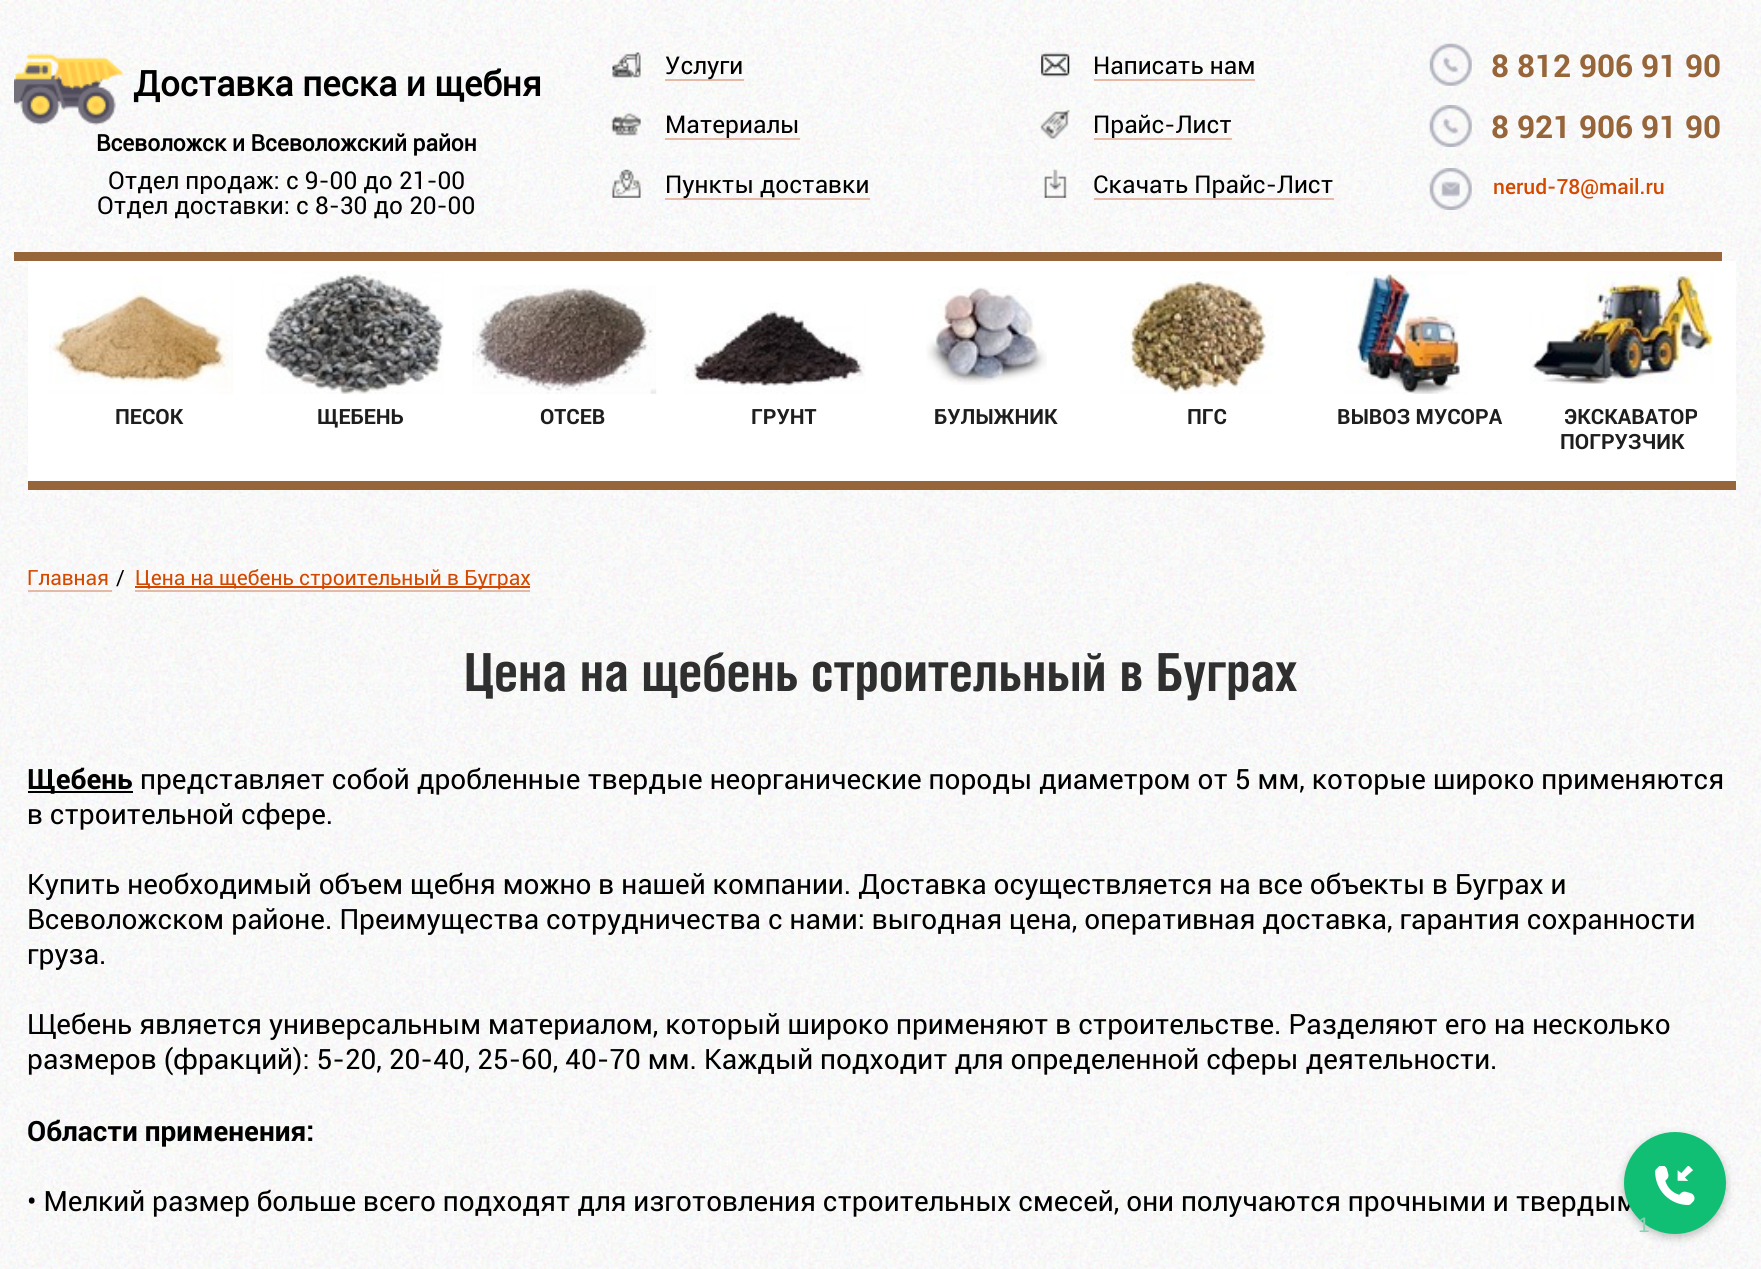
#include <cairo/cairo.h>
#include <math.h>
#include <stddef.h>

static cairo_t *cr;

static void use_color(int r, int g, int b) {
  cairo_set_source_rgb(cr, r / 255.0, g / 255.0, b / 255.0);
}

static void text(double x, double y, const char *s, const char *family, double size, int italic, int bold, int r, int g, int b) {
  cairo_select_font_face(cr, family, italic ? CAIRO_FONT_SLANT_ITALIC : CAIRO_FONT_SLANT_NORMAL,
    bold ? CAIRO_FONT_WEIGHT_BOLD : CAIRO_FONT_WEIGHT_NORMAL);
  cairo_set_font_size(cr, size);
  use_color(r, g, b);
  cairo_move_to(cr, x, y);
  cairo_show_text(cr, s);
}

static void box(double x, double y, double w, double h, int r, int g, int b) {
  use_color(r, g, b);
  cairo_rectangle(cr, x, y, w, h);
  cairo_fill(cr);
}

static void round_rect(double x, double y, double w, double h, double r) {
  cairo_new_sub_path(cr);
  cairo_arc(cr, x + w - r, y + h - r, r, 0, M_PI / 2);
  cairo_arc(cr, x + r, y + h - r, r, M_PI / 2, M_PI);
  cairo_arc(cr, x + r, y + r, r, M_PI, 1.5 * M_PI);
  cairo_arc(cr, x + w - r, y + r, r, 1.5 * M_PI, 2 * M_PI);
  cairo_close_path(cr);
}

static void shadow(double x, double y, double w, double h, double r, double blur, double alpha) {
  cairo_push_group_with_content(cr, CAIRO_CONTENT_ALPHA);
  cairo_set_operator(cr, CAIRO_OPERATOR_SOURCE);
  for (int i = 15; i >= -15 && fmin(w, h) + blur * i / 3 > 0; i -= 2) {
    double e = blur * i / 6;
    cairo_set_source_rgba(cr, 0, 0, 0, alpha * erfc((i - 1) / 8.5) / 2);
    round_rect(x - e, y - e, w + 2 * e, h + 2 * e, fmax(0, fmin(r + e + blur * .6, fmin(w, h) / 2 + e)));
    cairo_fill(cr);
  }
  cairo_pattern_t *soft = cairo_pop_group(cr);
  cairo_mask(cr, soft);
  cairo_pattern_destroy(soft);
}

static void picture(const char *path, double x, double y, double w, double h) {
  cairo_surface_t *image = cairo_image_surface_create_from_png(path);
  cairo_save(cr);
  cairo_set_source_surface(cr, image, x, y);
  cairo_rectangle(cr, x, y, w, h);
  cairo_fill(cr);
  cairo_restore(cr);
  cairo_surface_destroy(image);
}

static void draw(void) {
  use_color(255, 255, 255);
  cairo_paint(cr);
  picture("img_01.png", 0, 0, 1761, 1269);
  box(28, 260, 1708, 221, 255, 255, 255);
  picture("img_02.png", 0, 0, 1748, 261);
  box(14, 252, 1708, 9, 150, 101, 58);
  picture("img_03.png", 14, 53, 109, 73);
  picture("img_04.png", 612, 52, 29, 26);
  box(665, 79, 79, 2, 228, 185, 165);
  picture("img_05.png", 611, 113, 30, 23);
  box(665, 138, 135, 2, 228, 185, 165);
  picture("img_06.png", 612, 169, 29, 29);
  box(665, 198, 205, 2, 228, 185, 165);
  picture("img_07.png", 1041, 52, 29, 26);
  box(1094, 79, 161, 2, 228, 185, 165);
  picture("img_08.png", 1040, 109, 30, 30);
  box(1094, 138, 138, 2, 228, 185, 165);
  picture("img_09.png", 1044, 169, 23, 29);
  box(1094, 198, 240, 2, 228, 185, 165);
  picture("img_10.png", 1429, 43, 43, 43);
  picture("img_11.png", 1429, 105, 43, 42);
  picture("img_12.png", 1429, 168, 43, 42);
  box(28, 481, 1708, 9, 150, 101, 58);
  picture("img_13.png", 49, 276, 184, 118);
  picture("img_14.png", 261, 271, 183, 123);
  picture("img_15.png", 472, 285, 185, 109);
  picture("img_16.png", 684, 303, 182, 91);
  picture("img_17.png", 926, 286, 121, 99);
  picture("img_18.png", 1120, 271, 154, 123);
  picture("img_19.png", 1346, 271, 122, 123);
  picture("img_20.png", 1529, 271, 185, 113);
  box(28, 590, 84, 2, 228, 185, 165);
  box(135, 590, 395, 2, 228, 185, 165);
  box(135, 586, 395, 2, 211, 73, 0);
  box(28, 791, 105, 2, 0, 0, 0);
  use_color(0, 0, 0);
  shadow(1624, 1136, 102, 101, 50.5, 4.5, 0.26);
  text(133, 96, "Доставка песка и щебня", "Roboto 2", 35, 0, 1, 0, 0, 0);
  text(96, 151, "Всеволожск и Всеволожский район", "Roboto 2", 22.75, 0, 1, 0, 0, 0);
  text(108, 189, "Отдел продаж: с 9-00 до 21-00", "Roboto", 24.5, 0, 0, 0, 0, 0);
  text(97, 214, "Отдел доставки: с 8-30 до 20-00", "Roboto", 24.5, 0, 0, 0, 0, 0);
  text(665, 74, "Услуги", "Roboto", 24.5, 0, 0, 0, 0, 0);
  text(665, 133, "Материалы", "Roboto", 24.5, 0, 0, 0, 0, 0);
  text(665, 193, "Пункты доставки", "Roboto", 24.5, 0, 0, 0, 0, 0);
  text(1093, 74, "Написать нам", "Roboto", 24.5, 0, 0, 0, 0, 0);
  text(1093, 133, "Прайс-Лист", "Roboto", 24.5, 0, 0, 0, 0, 0);
  text(1093, 193, "Скачать Прайс-Лист", "Roboto", 24.5, 0, 0, 0, 0, 0);
  text(1491, 77, "8 812 906 91 90", "Roboto", 31.5, 0, 1, 150, 101, 58);
  text(1491, 138, "8 921 906 91 90", "Roboto", 31.5, 0, 1, 150, 101, 58);
  text(1493, 194, "nerud-78@mail.ru", "Roboto Medium", 21, 0, 0, 211, 73, 0);
  text(115, 424, "ПЕСОК", "Roboto", 21, 0, 1, 31, 30, 30);
  text(317, 424, "ЩЕБЕНЬ", "Roboto", 21, 0, 1, 31, 30, 30);
  text(540, 424, "ОТСЕВ", "Roboto", 21, 0, 1, 31, 30, 30);
  text(751, 424, "ГРУНТ", "Roboto", 21, 0, 1, 31, 30, 30);
  text(934, 424, "БУЛЫЖНИК", "Roboto", 21, 0, 1, 31, 30, 30);
  text(1187, 424, "ПГС", "Roboto", 21, 0, 1, 31, 30, 30);
  text(1337, 424, "ВЫВОЗ МУСОРА", "Roboto", 21, 0, 1, 31, 30, 30);
  text(1564, 424, "ЭКСКАВАТОР", "Roboto", 21, 0, 1, 31, 30, 30);
  text(1560, 449, "ПОГРУЗЧИК", "Roboto", 21, 0, 1, 31, 30, 30);
  text(27, 585, "Главная", "Roboto", 21, 0, 0, 211, 73, 0);
  text(116, 585, "/", "Roboto", 21, 0, 0, 0, 0, 0);
  text(135, 585, "Цена на щебень строительный в Буграх", "Roboto", 21, 0, 0, 211, 73, 0);
  text(464, 691, "Цена на щебень строительный в Буграх", "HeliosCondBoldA", 52.5, 0, 1, 47, 47, 47);
  text(27, 789, "Щебень", "Roboto", 28, 0, 1, 0, 0, 0);
  text(140, 789, "представляет собой дробленные твердые неорганические породы диаметром от 5 мм, которые широко применяются", "Roboto", 28, 0, 0, 0, 0, 0);
  text(27, 824, "в строительной сфере.", "Roboto", 28, 0, 0, 0, 0, 0);
  text(27, 894, "Купить необходимый объем щебня можно в нашей компании. Доставка осуществляется на все объекты в Буграх и", "Roboto", 28, 0, 0, 0, 0, 0);
  text(27, 929, "Всеволожском районе. Преимущества сотрудничества с нами: выгодная цена, оперативная доставка, гарантия сохранности", "Roboto", 28, 0, 0, 0, 0, 0);
  text(27, 964, "груза.", "Roboto", 28, 0, 0, 0, 0, 0);
  text(27, 1034, "Щебень является универсальным материалом, который широко применяют в строительстве. Разделяют его на несколько", "Roboto", 28, 0, 0, 0, 0, 0);
  text(27, 1069, "размеров (фракций): 5-20, 20-40, 25-60, 40-70 мм. Каждый подходит для определенной сферы деятельности.", "Roboto", 28, 0, 0, 0, 0, 0);
  text(27, 1141, "Области применения:", "Roboto", 28, 0, 1, 0, 0, 0);
  text(27, 1211, "• Мелкий размер больше всего подходят для изготовления строительных смесей, они получаются прочными и твердым", "Roboto", 28, 0, 0, 0, 0, 0);
  use_color(17, 191, 116);
  cairo_new_path(cr);
  cairo_arc(cr, 1675, 1183, 51, 0, 2 * M_PI);
  cairo_fill(cr);
  picture("img_21.png", 1655, 1166, 40, 39);
  text(1638, 1232, "1", "Liberation Sans", 21, 0, 0, 139, 210, 179);
}

int main(void) {
  cairo_surface_t *surface = cairo_image_surface_create(CAIRO_FORMAT_RGB24, 1761, 1269);
  cr = cairo_create(surface);
  cairo_font_options_t *options = cairo_font_options_create();
  cairo_font_options_set_hint_metrics(options, CAIRO_HINT_METRICS_OFF);
  cairo_font_options_set_hint_style(options, CAIRO_HINT_STYLE_NONE);
  cairo_set_font_options(cr, options);
  cairo_set_miter_limit(cr, 4);
  draw();
  cairo_surface_write_to_png(surface, "out.png");
  cairo_font_options_destroy(options);
  cairo_destroy(cr);
  cairo_surface_destroy(surface);
  return 0;
}
